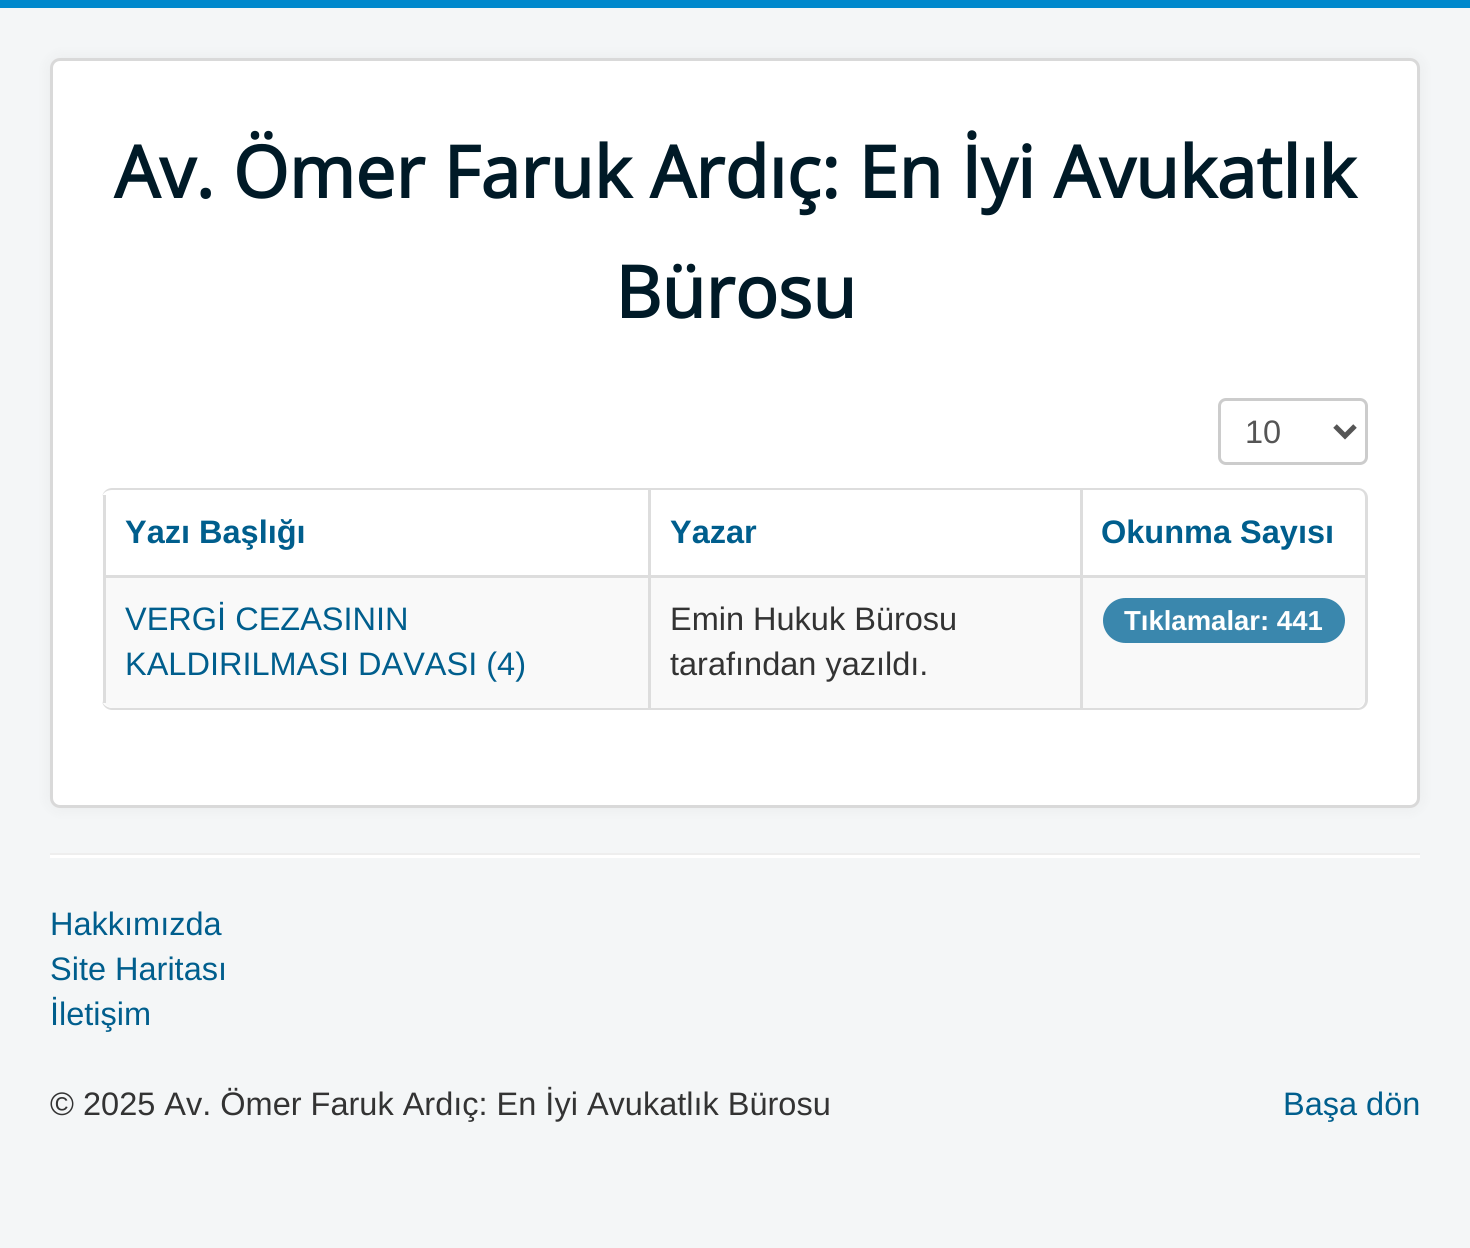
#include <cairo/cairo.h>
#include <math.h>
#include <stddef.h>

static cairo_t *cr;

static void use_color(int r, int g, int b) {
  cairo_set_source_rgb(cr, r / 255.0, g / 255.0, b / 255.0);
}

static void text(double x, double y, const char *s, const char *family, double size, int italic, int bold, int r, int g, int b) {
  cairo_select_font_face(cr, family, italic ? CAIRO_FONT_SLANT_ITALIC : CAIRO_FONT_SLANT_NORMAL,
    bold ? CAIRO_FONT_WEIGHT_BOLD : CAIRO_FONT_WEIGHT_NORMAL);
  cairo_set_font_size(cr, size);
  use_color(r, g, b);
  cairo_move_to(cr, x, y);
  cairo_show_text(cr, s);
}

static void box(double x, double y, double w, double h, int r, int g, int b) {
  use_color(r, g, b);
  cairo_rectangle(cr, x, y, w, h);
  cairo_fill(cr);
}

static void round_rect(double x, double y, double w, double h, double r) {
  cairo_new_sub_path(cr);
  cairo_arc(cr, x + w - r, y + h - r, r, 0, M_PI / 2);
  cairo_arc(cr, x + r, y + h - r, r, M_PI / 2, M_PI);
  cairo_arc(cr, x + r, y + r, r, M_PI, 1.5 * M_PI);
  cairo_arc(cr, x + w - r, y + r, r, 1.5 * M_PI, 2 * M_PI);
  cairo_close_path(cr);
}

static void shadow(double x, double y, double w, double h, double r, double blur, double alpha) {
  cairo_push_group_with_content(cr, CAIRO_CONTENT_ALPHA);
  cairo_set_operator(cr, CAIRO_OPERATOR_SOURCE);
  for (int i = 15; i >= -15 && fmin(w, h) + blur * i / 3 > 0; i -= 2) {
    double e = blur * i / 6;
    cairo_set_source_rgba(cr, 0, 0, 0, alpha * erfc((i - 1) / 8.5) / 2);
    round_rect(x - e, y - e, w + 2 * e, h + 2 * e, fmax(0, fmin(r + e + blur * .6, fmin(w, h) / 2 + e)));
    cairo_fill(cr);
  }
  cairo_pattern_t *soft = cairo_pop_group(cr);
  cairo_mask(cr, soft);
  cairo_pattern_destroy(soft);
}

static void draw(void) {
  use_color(244, 246, 247);
  cairo_paint(cr);
  box(0, 0, 1470, 8, 0, 136, 204);
  use_color(0, 0, 0);
  shadow(50, 58, 1370, 750, 10, 7.5, 0.05);
  use_color(255, 255, 255);
  round_rect(50, 58, 1370, 750, 10);
  cairo_fill(cr);
  round_rect(51.5, 59.5, 1367, 747, 8.5);
  cairo_set_source_rgba(cr, 0, 0, 0, 0.15);
  cairo_set_line_width(cr, 3);
  cairo_stroke(cr);
  round_rect(1219.5, 399.5, 147, 64, 6.5);
  use_color(204, 204, 204);
  cairo_stroke(cr);
  cairo_new_path(cr);
  cairo_move_to(cr, 1335, 426);
  cairo_line_to(cr, 1345, 436);
  cairo_line_to(cr, 1355, 426);
  use_color(85, 85, 85);
  cairo_set_line_width(cr, 5);
  cairo_stroke(cr);
  use_color(221, 221, 221);
  cairo_set_fill_rule(cr, CAIRO_FILL_RULE_EVEN_ODD);
  cairo_new_path(cr);
  cairo_move_to(cr, 112, 488);
  cairo_line_to(cr, 1358, 488);
  cairo_curve_to(cr, 1363, 488, 1368, 492, 1368, 498);
  cairo_line_to(cr, 1368, 700);
  cairo_curve_to(cr, 1368, 706, 1363, 710, 1358, 710);
  cairo_line_to(cr, 112, 710);
  cairo_curve_to(cr, 107, 710, 102, 706, 102, 700);
  cairo_line_to(cr, 102, 498);
  cairo_curve_to(cr, 102, 492, 107, 488, 112, 488);
  cairo_close_path(cr);
  cairo_move_to(cr, 112, 490);
  cairo_line_to(cr, 1358, 490);
  cairo_curve_to(cr, 1362, 490, 1365, 493, 1365, 498);
  cairo_line_to(cr, 1365, 700);
  cairo_curve_to(cr, 1365, 704, 1362, 708, 1358, 708);
  cairo_line_to(cr, 112, 708);
  cairo_curve_to(cr, 107, 708, 102, 704, 102, 700);
  cairo_line_to(cr, 102, 498);
  cairo_curve_to(cr, 102, 493, 107, 490, 112, 490);
  cairo_close_path(cr);
  cairo_fill(cr);
  box(103, 495, 3, 80, 221, 221, 221);
  box(648, 490, 3, 85, 221, 221, 221);
  box(1080, 490, 3, 85, 221, 221, 221);
  use_color(249, 249, 249);
  cairo_new_path(cr);
  cairo_move_to(cr, 103, 575);
  cairo_line_to(cr, 648, 575);
  cairo_line_to(cr, 648, 708);
  cairo_line_to(cr, 113, 708);
  cairo_curve_to(cr, 107.5, 708, 103, 703.5, 103, 698);
  cairo_close_path(cr);
  cairo_fill(cr);
  box(103, 575, 977, 3, 221, 221, 221);
  box(103, 575, 3, 128, 221, 221, 221);
  box(651, 578, 429, 130, 249, 249, 249);
  box(648, 575, 3, 133, 221, 221, 221);
  use_color(249, 249, 249);
  cairo_new_path(cr);
  cairo_move_to(cr, 1080, 575);
  cairo_line_to(cr, 1365, 575);
  cairo_line_to(cr, 1365, 698);
  cairo_curve_to(cr, 1365, 703.5, 1360.5, 708, 1355, 708);
  cairo_line_to(cr, 1080, 708);
  cairo_close_path(cr);
  cairo_fill(cr);
  box(1080, 575, 285, 3, 221, 221, 221);
  box(1080, 575, 3, 133, 221, 221, 221);
  use_color(58, 135, 173);
  round_rect(1103, 598, 242, 45, 22.5);
  cairo_fill(cr);
  box(50, 853, 1370, 2, 238, 238, 238);
  box(50, 855, 1370, 3, 255, 255, 255);
  text(114, 198, "Av. Ömer Faruk Ardıç: En İyi Avukatlık", "Open Sans", 71.75, 0, 1, 0, 26, 39);
  text(615, 318, "Bürosu", "Open Sans", 71.75, 0, 1, 0, 26, 39);
  text(1245, 443, "10", "Liberation Sans", 32.5, 0, 0, 85, 85, 85);
  text(125, 543, "Yazı Başlığı", "Liberation Sans", 32.5, 0, 1, 0, 94, 141);
  text(670, 543, "Yazar", "Liberation Sans", 32.5, 0, 1, 0, 94, 141);
  text(1101, 543, "Okunma Sayısı", "Liberation Sans", 32.5, 0, 1, 0, 94, 141);
  text(125, 630, "VERGİ CEZASININ", "Liberation Sans", 32.5, 0, 0, 0, 94, 141);
  text(125, 675, "KALDIRILMASI DAVASI (4)", "Liberation Sans", 32.5, 0, 0, 0, 94, 141);
  text(670, 630, "Emin Hukuk Bürosu", "Liberation Sans", 32.5, 0, 0, 51, 51, 51);
  text(670, 675, "tarafından yazıldı.", "Liberation Sans", 32.5, 0, 0, 51, 51, 51);
  text(1124, 630, "Tıklamalar: 441", "Liberation Sans", 27.5, 0, 1, 255, 255, 255);
  text(50, 935, "Hakkımızda", "Liberation Sans", 32.5, 0, 0, 0, 94, 141);
  text(50, 980, "Site Haritası", "Liberation Sans", 32.5, 0, 0, 0, 94, 141);
  text(50, 1025, "İletişim", "Liberation Sans", 32.5, 0, 0, 0, 94, 141);
  text(50, 1115, "© 2025 Av. Ömer Faruk Ardıç: En İyi Avukatlık Bürosu", "Liberation Sans", 32.5, 0, 0, 51, 51, 51);
  text(1283, 1115, "Başa dön", "Liberation Sans", 32.5, 0, 0, 0, 94, 141);
}

int main(void) {
  cairo_surface_t *surface = cairo_image_surface_create(CAIRO_FORMAT_RGB24, 1470, 1248);
  cr = cairo_create(surface);
  cairo_font_options_t *options = cairo_font_options_create();
  cairo_font_options_set_hint_metrics(options, CAIRO_HINT_METRICS_OFF);
  cairo_font_options_set_hint_style(options, CAIRO_HINT_STYLE_NONE);
  cairo_set_font_options(cr, options);
  cairo_set_miter_limit(cr, 4);
  draw();
  cairo_surface_write_to_png(surface, "out.png");
  cairo_font_options_destroy(options);
  cairo_destroy(cr);
  cairo_surface_destroy(surface);
  return 0;
}
